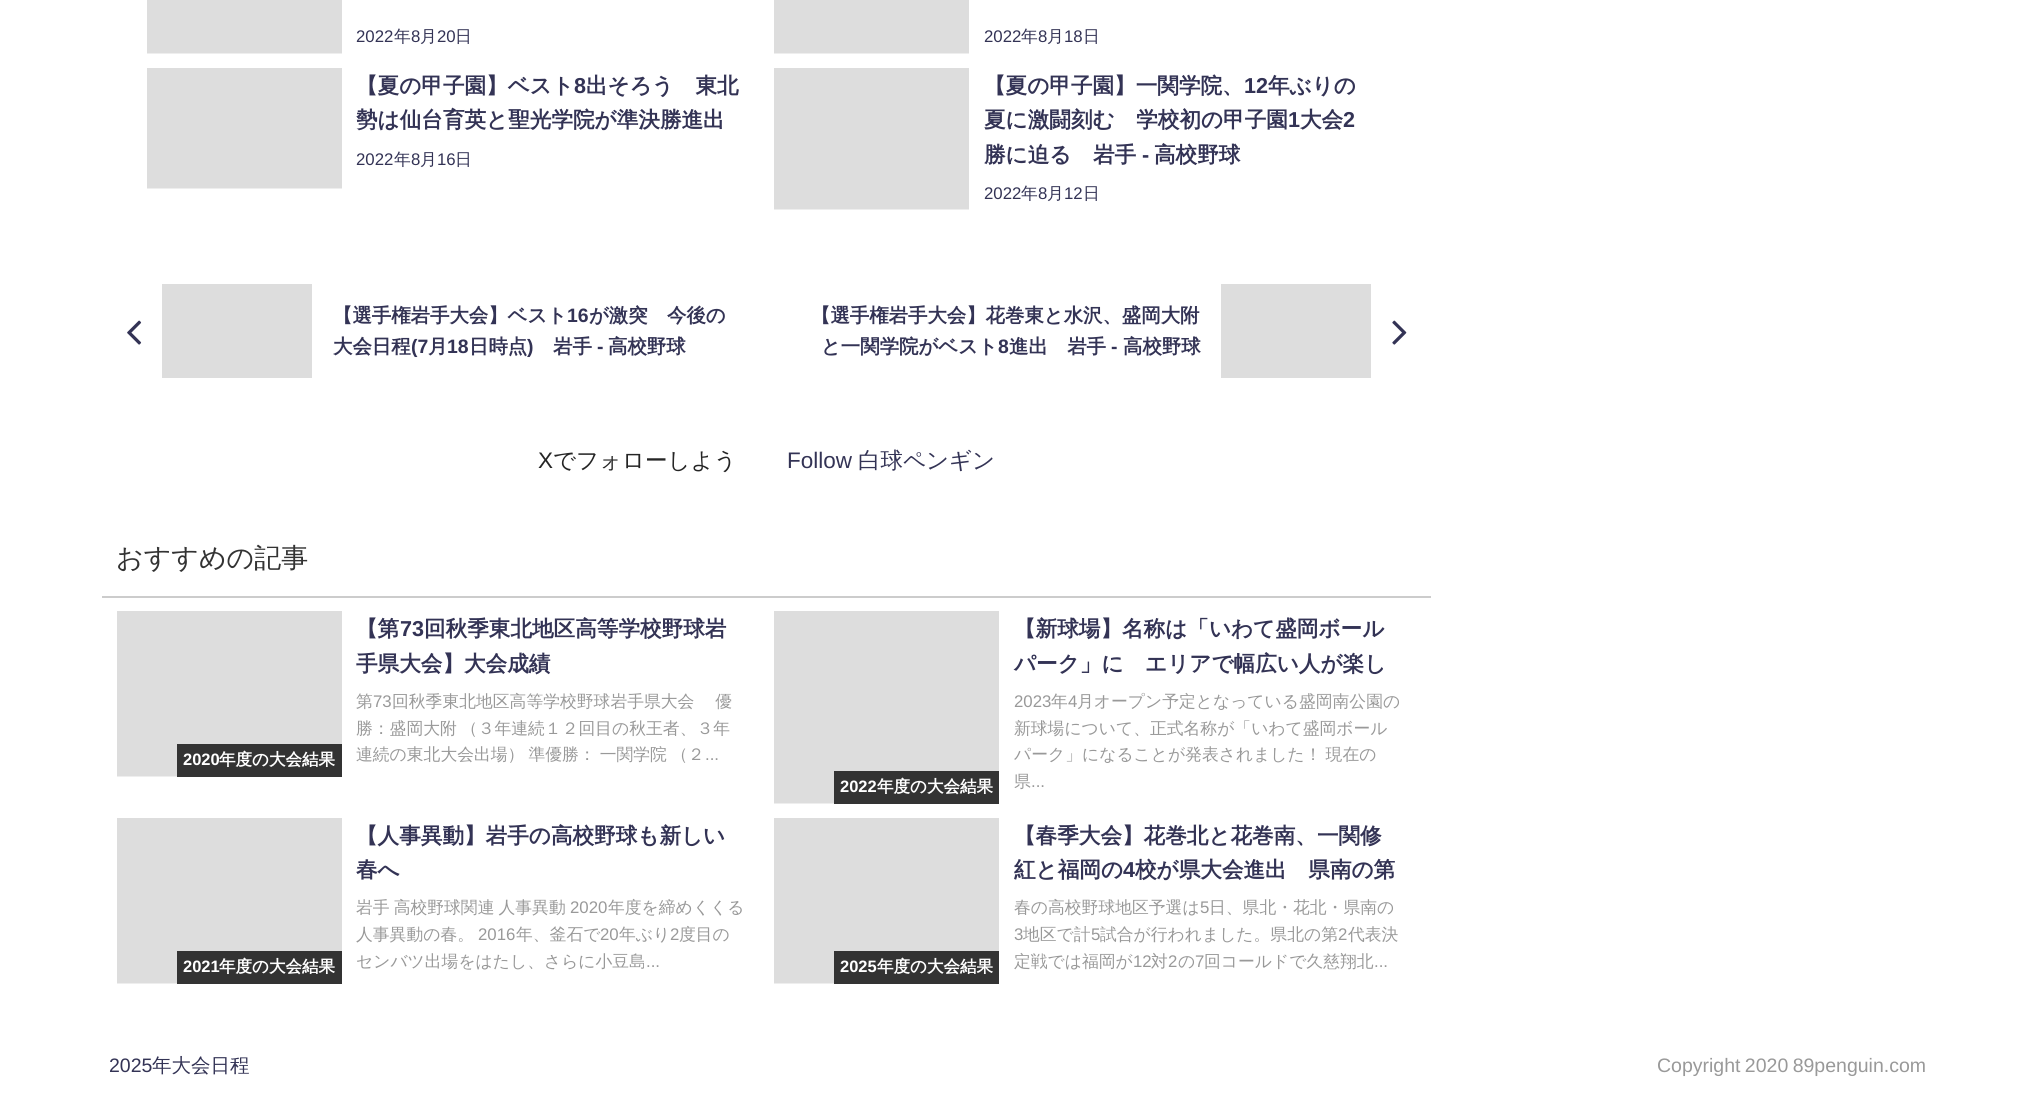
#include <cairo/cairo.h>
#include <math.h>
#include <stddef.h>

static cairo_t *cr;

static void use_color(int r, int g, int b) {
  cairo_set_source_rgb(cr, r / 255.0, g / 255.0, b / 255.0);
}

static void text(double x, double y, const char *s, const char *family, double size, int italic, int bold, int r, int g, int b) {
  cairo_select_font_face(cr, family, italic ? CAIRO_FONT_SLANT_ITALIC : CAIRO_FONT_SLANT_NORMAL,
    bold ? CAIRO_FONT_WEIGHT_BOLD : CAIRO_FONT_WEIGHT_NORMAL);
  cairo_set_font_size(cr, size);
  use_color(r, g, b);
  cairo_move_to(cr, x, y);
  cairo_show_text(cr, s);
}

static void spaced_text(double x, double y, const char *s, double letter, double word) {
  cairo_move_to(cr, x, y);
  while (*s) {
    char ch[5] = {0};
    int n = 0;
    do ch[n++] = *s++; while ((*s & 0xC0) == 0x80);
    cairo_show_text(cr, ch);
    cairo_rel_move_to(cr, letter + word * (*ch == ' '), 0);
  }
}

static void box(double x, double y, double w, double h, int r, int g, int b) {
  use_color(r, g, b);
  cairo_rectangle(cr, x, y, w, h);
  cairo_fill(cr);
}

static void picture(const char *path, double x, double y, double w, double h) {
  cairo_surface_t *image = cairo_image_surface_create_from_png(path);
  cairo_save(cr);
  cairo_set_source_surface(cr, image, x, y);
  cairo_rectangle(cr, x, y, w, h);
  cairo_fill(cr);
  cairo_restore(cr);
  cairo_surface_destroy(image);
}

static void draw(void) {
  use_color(255, 255, 255);
  cairo_paint(cr);
  box(147, 53, 195, 1, 238, 238, 238);
  box(147, 0, 195, 53, 221, 221, 221);
  box(774, 53, 195, 1, 238, 238, 238);
  box(774, 0, 195, 53, 221, 221, 221);
  box(147, 188, 195, 1, 238, 238, 238);
  box(147, 68, 195, 120, 221, 221, 221);
  box(774, 209, 195, 1, 238, 238, 238);
  box(774, 68, 195, 141, 221, 221, 221);
  picture("img_01.png", 127, 320, 15, 25);
  box(162, 284, 150, 94, 221, 221, 221);
  box(1221, 284, 150, 94, 221, 221, 221);
  picture("img_02.png", 1392, 320, 15, 25);
  box(102, 596, 1329, 2, 204, 204, 204);
  box(117, 776, 60, 1, 238, 238, 238);
  box(117, 611, 225, 165, 221, 221, 221);
  box(177, 744, 165, 33, 51, 51, 51);
  box(774, 803, 60, 1, 238, 238, 238);
  box(774, 611, 225, 192, 221, 221, 221);
  box(834, 771, 165, 33, 51, 51, 51);
  box(117, 983, 60, 1, 238, 238, 238);
  box(117, 818, 225, 165, 221, 221, 221);
  box(177, 951, 165, 33, 51, 51, 51);
  box(774, 983, 60, 1, 238, 238, 238);
  box(774, 818, 225, 165, 221, 221, 221);
  box(834, 951, 165, 33, 51, 51, 51);
  text(356, 42, "2022", "Liberation Sans", 16.8, 0, 0, 51, 51, 85);
  text(394, 42, "年", "WenQuanYi Zen Hei Medium", 16.8, 0, 0, 51, 51, 85);
  text(411, 42, "8", "Liberation Sans", 16.8, 0, 0, 51, 51, 85);
  text(420, 42, "月", "WenQuanYi Zen Hei Medium", 16.8, 0, 0, 51, 51, 85);
  text(437, 42, "20", "Liberation Sans", 16.8, 0, 0, 51, 51, 85);
  text(455, 42, "日", "WenQuanYi Zen Hei Medium", 16.8, 0, 0, 51, 51, 85);
  text(984, 42, "2022", "Liberation Sans", 16.8, 0, 0, 51, 51, 85);
  text(1021, 42, "年", "WenQuanYi Zen Hei Medium", 16.8, 0, 0, 51, 51, 85);
  text(1038, 42, "8", "Liberation Sans", 16.8, 0, 0, 51, 51, 85);
  text(1047, 42, "月", "WenQuanYi Zen Hei Medium", 16.8, 0, 0, 51, 51, 85);
  text(1064, 42, "18", "Liberation Sans", 16.8, 0, 0, 51, 51, 85);
  text(1083, 42, "日", "WenQuanYi Zen Hei Medium", 16.8, 0, 0, 51, 51, 85);
  text(356, 93, "【夏の甲子園】ベスト", "WenQuanYi Zen Hei", 21.6, 0, 1, 51, 51, 85);
  text(574, 93, "8", "Liberation Sans", 21.6, 0, 1, 51, 51, 85);
  text(586, 93, "出そろう　東北", "WenQuanYi Zen Hei", 21.6, 0, 1, 51, 51, 85);
  text(356, 127, "勢は仙台育英と聖光学院が準決勝進出", "WenQuanYi Zen Hei", 21.6, 0, 1, 51, 51, 85);
  text(356, 165, "2022", "Liberation Sans", 16.8, 0, 0, 51, 51, 85);
  text(394, 165, "年", "WenQuanYi Zen Hei Medium", 16.8, 0, 0, 51, 51, 85);
  text(411, 165, "8", "Liberation Sans", 16.8, 0, 0, 51, 51, 85);
  text(420, 165, "月", "WenQuanYi Zen Hei Medium", 16.8, 0, 0, 51, 51, 85);
  text(437, 165, "16", "Liberation Sans", 16.8, 0, 0, 51, 51, 85);
  text(455, 165, "日", "WenQuanYi Zen Hei Medium", 16.8, 0, 0, 51, 51, 85);
  text(984, 93, "【夏の甲子園】一関学院、", "WenQuanYi Zen Hei", 21.6, 0, 1, 51, 51, 85);
  text(1244, 93, "12", "Liberation Sans", 21.6, 0, 1, 51, 51, 85);
  text(1268, 93, "年ぶりの", "WenQuanYi Zen Hei", 21.6, 0, 1, 51, 51, 85);
  text(984, 127, "夏に激闘刻む　学校初の甲子園", "WenQuanYi Zen Hei", 21.6, 0, 1, 51, 51, 85);
  text(1288, 127, "1", "Liberation Sans", 21.6, 0, 1, 51, 51, 85);
  text(1300, 127, "大会", "WenQuanYi Zen Hei", 21.6, 0, 1, 51, 51, 85);
  text(1343, 127, "2", "Liberation Sans", 21.6, 0, 1, 51, 51, 85);
  text(984, 162, "勝に迫る　岩手", "WenQuanYi Zen Hei", 21.6, 0, 1, 51, 51, 85);
  text(1142, 162, "-", "Liberation Sans", 21.6, 0, 1, 51, 51, 85);
  text(1154, 162, "高校野球", "WenQuanYi Zen Hei", 21.6, 0, 1, 51, 51, 85);
  text(984, 199, "2022", "Liberation Sans", 16.8, 0, 0, 51, 51, 85);
  text(1021, 199, "年", "WenQuanYi Zen Hei Medium", 16.8, 0, 0, 51, 51, 85);
  text(1038, 199, "8", "Liberation Sans", 16.8, 0, 0, 51, 51, 85);
  text(1047, 199, "月", "WenQuanYi Zen Hei Medium", 16.8, 0, 0, 51, 51, 85);
  text(1064, 199, "12", "Liberation Sans", 16.8, 0, 0, 51, 51, 85);
  text(1083, 199, "日", "WenQuanYi Zen Hei Medium", 16.8, 0, 0, 51, 51, 85);
  text(333, 322, "【選手権岩手大会】ベスト", "WenQuanYi Zen Hei", 19.4, 0, 1, 51, 51, 85);
  text(567, 322, "16", "Liberation Sans", 19.4, 0, 1, 51, 51, 85);
  text(589, 322, "が激突　今後の", "WenQuanYi Zen Hei", 19.4, 0, 1, 51, 51, 85);
  text(333, 353, "大会日程", "WenQuanYi Zen Hei", 19.4, 0, 1, 51, 51, 85);
  text(411, 353, "(7", "Liberation Sans", 19.4, 0, 1, 51, 51, 85);
  text(428, 353, "月", "WenQuanYi Zen Hei", 19.4, 0, 1, 51, 51, 85);
  text(447, 353, "18", "Liberation Sans", 19.4, 0, 1, 51, 51, 85);
  text(469, 353, "日時点", "WenQuanYi Zen Hei", 19.4, 0, 1, 51, 51, 85);
  text(527, 353, ")", "Liberation Sans", 19.4, 0, 1, 51, 51, 85);
  text(553, 353, "岩手", "WenQuanYi Zen Hei", 19.4, 0, 1, 51, 51, 85);
  text(597, 353, "-", "Liberation Sans", 19.4, 0, 1, 51, 51, 85);
  text(608, 353, "高校野球", "WenQuanYi Zen Hei", 19.4, 0, 1, 51, 51, 85);
  text(811, 322, "【選手権岩手大会】花巻東と水沢、盛岡大附", "WenQuanYi Zen Hei", 19.4, 0, 1, 51, 51, 85);
  text(821, 353, "と一関学院がベスト", "WenQuanYi Zen Hei", 19.4, 0, 1, 51, 51, 85);
  text(998, 353, "8", "Liberation Sans", 19.4, 0, 1, 51, 51, 85);
  text(1009, 353, "進出　岩手", "WenQuanYi Zen Hei", 19.4, 0, 1, 51, 51, 85);
  text(1111, 353, "-", "Liberation Sans", 19.4, 0, 1, 51, 51, 85);
  text(1123, 353, "高校野球", "WenQuanYi Zen Hei", 19.4, 0, 1, 51, 51, 85);
  text(538, 468, "X", "Liberation Sans", 22.5, 0, 0, 37, 37, 37);
  text(553, 468, "でフォローしよう", "WenQuanYi Zen Hei Medium", 22.5, 0, 0, 37, 37, 37);
  text(787, 468, "Follow", "Liberation Sans", 22.5, 0, 0, 51, 51, 85);
  text(858, 468, "白球ペンギン", "WenQuanYi Zen Hei Medium", 22.5, 0, 0, 51, 51, 85);
  text(116, 567, "おすすめの記事", "WenQuanYi Zen Hei Medium", 27, 0, 0, 51, 51, 51);
  text(183, 765, "2020", "Liberation Sans", 16.5, 0, 1, 255, 255, 255);
  text(219, 765, "年度の大会結果", "WenQuanYi Zen Hei", 16.5, 0, 1, 255, 255, 255);
  text(356, 636, "【第", "WenQuanYi Zen Hei", 21.6, 0, 1, 51, 51, 85);
  text(400, 636, "73", "Liberation Sans", 21.6, 0, 1, 51, 51, 85);
  text(424, 636, "回秋季東北地区高等学校野球岩", "WenQuanYi Zen Hei", 21.6, 0, 1, 51, 51, 85);
  text(356, 671, "手県大会】大会成績", "WenQuanYi Zen Hei", 21.6, 0, 1, 51, 51, 85);
  text(356, 707, "第", "WenQuanYi Zen Hei Medium", 16.8, 0, 0, 153, 153, 153);
  text(373, 707, "73", "Liberation Sans", 16.8, 0, 0, 153, 153, 153);
  cairo_select_font_face(cr, "WenQuanYi Zen Hei Medium", CAIRO_FONT_SLANT_NORMAL, CAIRO_FONT_WEIGHT_NORMAL);
  spaced_text(392, 707, "回秋季東北地区高等学校野球岩手県大会 　優", 0, -1);
  spaced_text(356, 734, "勝：盛岡大附 （３年連続１２回目の秋王者、３年", 0, -1);
  spaced_text(356, 760, "連続の東北大会出場） 準優勝： 一関学院 （２", 0, -1);
  text(705, 760, "...", "Liberation Sans", 16.8, 0, 0, 153, 153, 153);
  text(840, 792, "2022", "Liberation Sans", 16.5, 0, 1, 255, 255, 255);
  text(877, 792, "年度の大会結果", "WenQuanYi Zen Hei", 16.5, 0, 1, 255, 255, 255);
  text(1014, 636, "【新球場】名称は「いわて盛岡ボール", "WenQuanYi Zen Hei", 21.6, 0, 1, 51, 51, 85);
  text(1014, 671, "パーク」に　エリアで幅広い人が楽し", "WenQuanYi Zen Hei", 21.6, 0, 1, 51, 51, 85);
  text(1014, 707, "2023", "Liberation Sans", 16.8, 0, 0, 153, 153, 153);
  text(1051, 707, "年", "WenQuanYi Zen Hei Medium", 16.8, 0, 0, 153, 153, 153);
  text(1068, 707, "4", "Liberation Sans", 16.8, 0, 0, 153, 153, 153);
  text(1077, 707, "月オープン予定となっている盛岡南公園の", "WenQuanYi Zen Hei Medium", 16.8, 0, 0, 153, 153, 153);
  text(1014, 734, "新球場について、正式名称が「いわて盛岡ボール", "WenQuanYi Zen Hei Medium", 16.8, 0, 0, 153, 153, 153);
  spaced_text(1014, 760, "パーク」になることが発表されました！ 現在の", 0, -1);
  text(1014, 787, "県", "WenQuanYi Zen Hei Medium", 16.8, 0, 0, 153, 153, 153);
  text(1031, 787, "...", "Liberation Sans", 16.8, 0, 0, 153, 153, 153);
  text(183, 972, "2021", "Liberation Sans", 16.5, 0, 1, 255, 255, 255);
  text(219, 972, "年度の大会結果", "WenQuanYi Zen Hei", 16.5, 0, 1, 255, 255, 255);
  text(356, 843, "【人事異動】岩手の高校野球も新しい", "WenQuanYi Zen Hei", 21.6, 0, 1, 51, 51, 85);
  text(356, 877, "春へ", "WenQuanYi Zen Hei", 21.6, 0, 1, 51, 51, 85);
  cairo_select_font_face(cr, "WenQuanYi Zen Hei Medium", CAIRO_FONT_SLANT_NORMAL, CAIRO_FONT_WEIGHT_NORMAL);
  cairo_set_font_size(cr, 16.8);
  use_color(153, 153, 153);
  spaced_text(356, 913, "岩手 高校野球関連 人事異動", 0, -1);
  text(570, 913, "2020", "Liberation Sans", 16.8, 0, 0, 153, 153, 153);
  text(608, 913, "年度を締めくくる", "WenQuanYi Zen Hei Medium", 16.8, 0, 0, 153, 153, 153);
  text(356, 940, "人事異動の春。", "WenQuanYi Zen Hei Medium", 16.8, 0, 0, 153, 153, 153);
  text(478, 940, "2016", "Liberation Sans", 16.8, 0, 0, 153, 153, 153);
  text(516, 940, "年、釜石で", "WenQuanYi Zen Hei Medium", 16.8, 0, 0, 153, 153, 153);
  text(600, 940, "20", "Liberation Sans", 16.8, 0, 0, 153, 153, 153);
  text(619, 940, "年ぶり", "WenQuanYi Zen Hei Medium", 16.8, 0, 0, 153, 153, 153);
  text(670, 940, "2", "Liberation Sans", 16.8, 0, 0, 153, 153, 153);
  text(679, 940, "度目の", "WenQuanYi Zen Hei Medium", 16.8, 0, 0, 153, 153, 153);
  text(356, 967, "センバツ出場をはたし、さらに小豆島", "WenQuanYi Zen Hei Medium", 16.8, 0, 0, 153, 153, 153);
  text(646, 967, "...", "Liberation Sans", 16.8, 0, 0, 153, 153, 153);
  text(840, 972, "2025", "Liberation Sans", 16.5, 0, 1, 255, 255, 255);
  text(877, 972, "年度の大会結果", "WenQuanYi Zen Hei", 16.5, 0, 1, 255, 255, 255);
  text(1014, 843, "【春季大会】花巻北と花巻南、一関修", "WenQuanYi Zen Hei", 21.6, 0, 1, 51, 51, 85);
  text(1014, 877, "紅と福岡の", "WenQuanYi Zen Hei", 21.6, 0, 1, 51, 51, 85);
  text(1123, 877, "4", "Liberation Sans", 21.6, 0, 1, 51, 51, 85);
  text(1135, 877, "校が県大会進出　県南の第", "WenQuanYi Zen Hei", 21.6, 0, 1, 51, 51, 85);
  text(1014, 913, "春の高校野球地区予選は", "WenQuanYi Zen Hei Medium", 16.8, 0, 0, 153, 153, 153);
  text(1200, 913, "5", "Liberation Sans", 16.8, 0, 0, 153, 153, 153);
  text(1209, 913, "日、県北・花北・県南の", "WenQuanYi Zen Hei Medium", 16.8, 0, 0, 153, 153, 153);
  text(1014, 940, "3", "Liberation Sans", 16.8, 0, 0, 153, 153, 153);
  text(1023, 940, "地区で計", "WenQuanYi Zen Hei Medium", 16.8, 0, 0, 153, 153, 153);
  text(1091, 940, "5", "Liberation Sans", 16.8, 0, 0, 153, 153, 153);
  text(1100, 940, "試合が行われました。県北の第", "WenQuanYi Zen Hei Medium", 16.8, 0, 0, 153, 153, 153);
  text(1338, 940, "2", "Liberation Sans", 16.8, 0, 0, 153, 153, 153);
  text(1348, 940, "代表決", "WenQuanYi Zen Hei Medium", 16.8, 0, 0, 153, 153, 153);
  text(1014, 967, "定戦では福岡が", "WenQuanYi Zen Hei Medium", 16.8, 0, 0, 153, 153, 153);
  text(1133, 967, "12", "Liberation Sans", 16.8, 0, 0, 153, 153, 153);
  text(1151, 967, "対", "WenQuanYi Zen Hei Medium", 16.8, 0, 0, 153, 153, 153);
  text(1168, 967, "2", "Liberation Sans", 16.8, 0, 0, 153, 153, 153);
  text(1178, 967, "の", "WenQuanYi Zen Hei Medium", 16.8, 0, 0, 153, 153, 153);
  text(1195, 967, "7", "Liberation Sans", 16.8, 0, 0, 153, 153, 153);
  text(1204, 967, "回コールドで久慈翔北", "WenQuanYi Zen Hei Medium", 16.8, 0, 0, 153, 153, 153);
  text(1374, 967, "...", "Liberation Sans", 16.8, 0, 0, 153, 153, 153);
  text(109, 1072, "2025", "Liberation Sans", 19.5, 0, 0, 51, 51, 85);
  text(152, 1072, "年大会日程", "WenQuanYi Zen Hei Medium", 19.5, 0, 0, 51, 51, 85);
  cairo_select_font_face(cr, "Liberation Sans", CAIRO_FONT_SLANT_NORMAL, CAIRO_FONT_WEIGHT_NORMAL);
  use_color(153, 153, 153);
  spaced_text(1657, 1072, "Copyright 2020 89penguin.com", 0, -1);
}

int main(void) {
  cairo_surface_t *surface = cairo_image_surface_create(CAIRO_FORMAT_RGB24, 2028, 1103);
  cr = cairo_create(surface);
  cairo_font_options_t *options = cairo_font_options_create();
  cairo_font_options_set_hint_metrics(options, CAIRO_HINT_METRICS_OFF);
  cairo_font_options_set_hint_style(options, CAIRO_HINT_STYLE_NONE);
  cairo_set_font_options(cr, options);
  cairo_set_miter_limit(cr, 4);
  draw();
  cairo_surface_write_to_png(surface, "out.png");
  cairo_font_options_destroy(options);
  cairo_destroy(cr);
  cairo_surface_destroy(surface);
  return 0;
}
